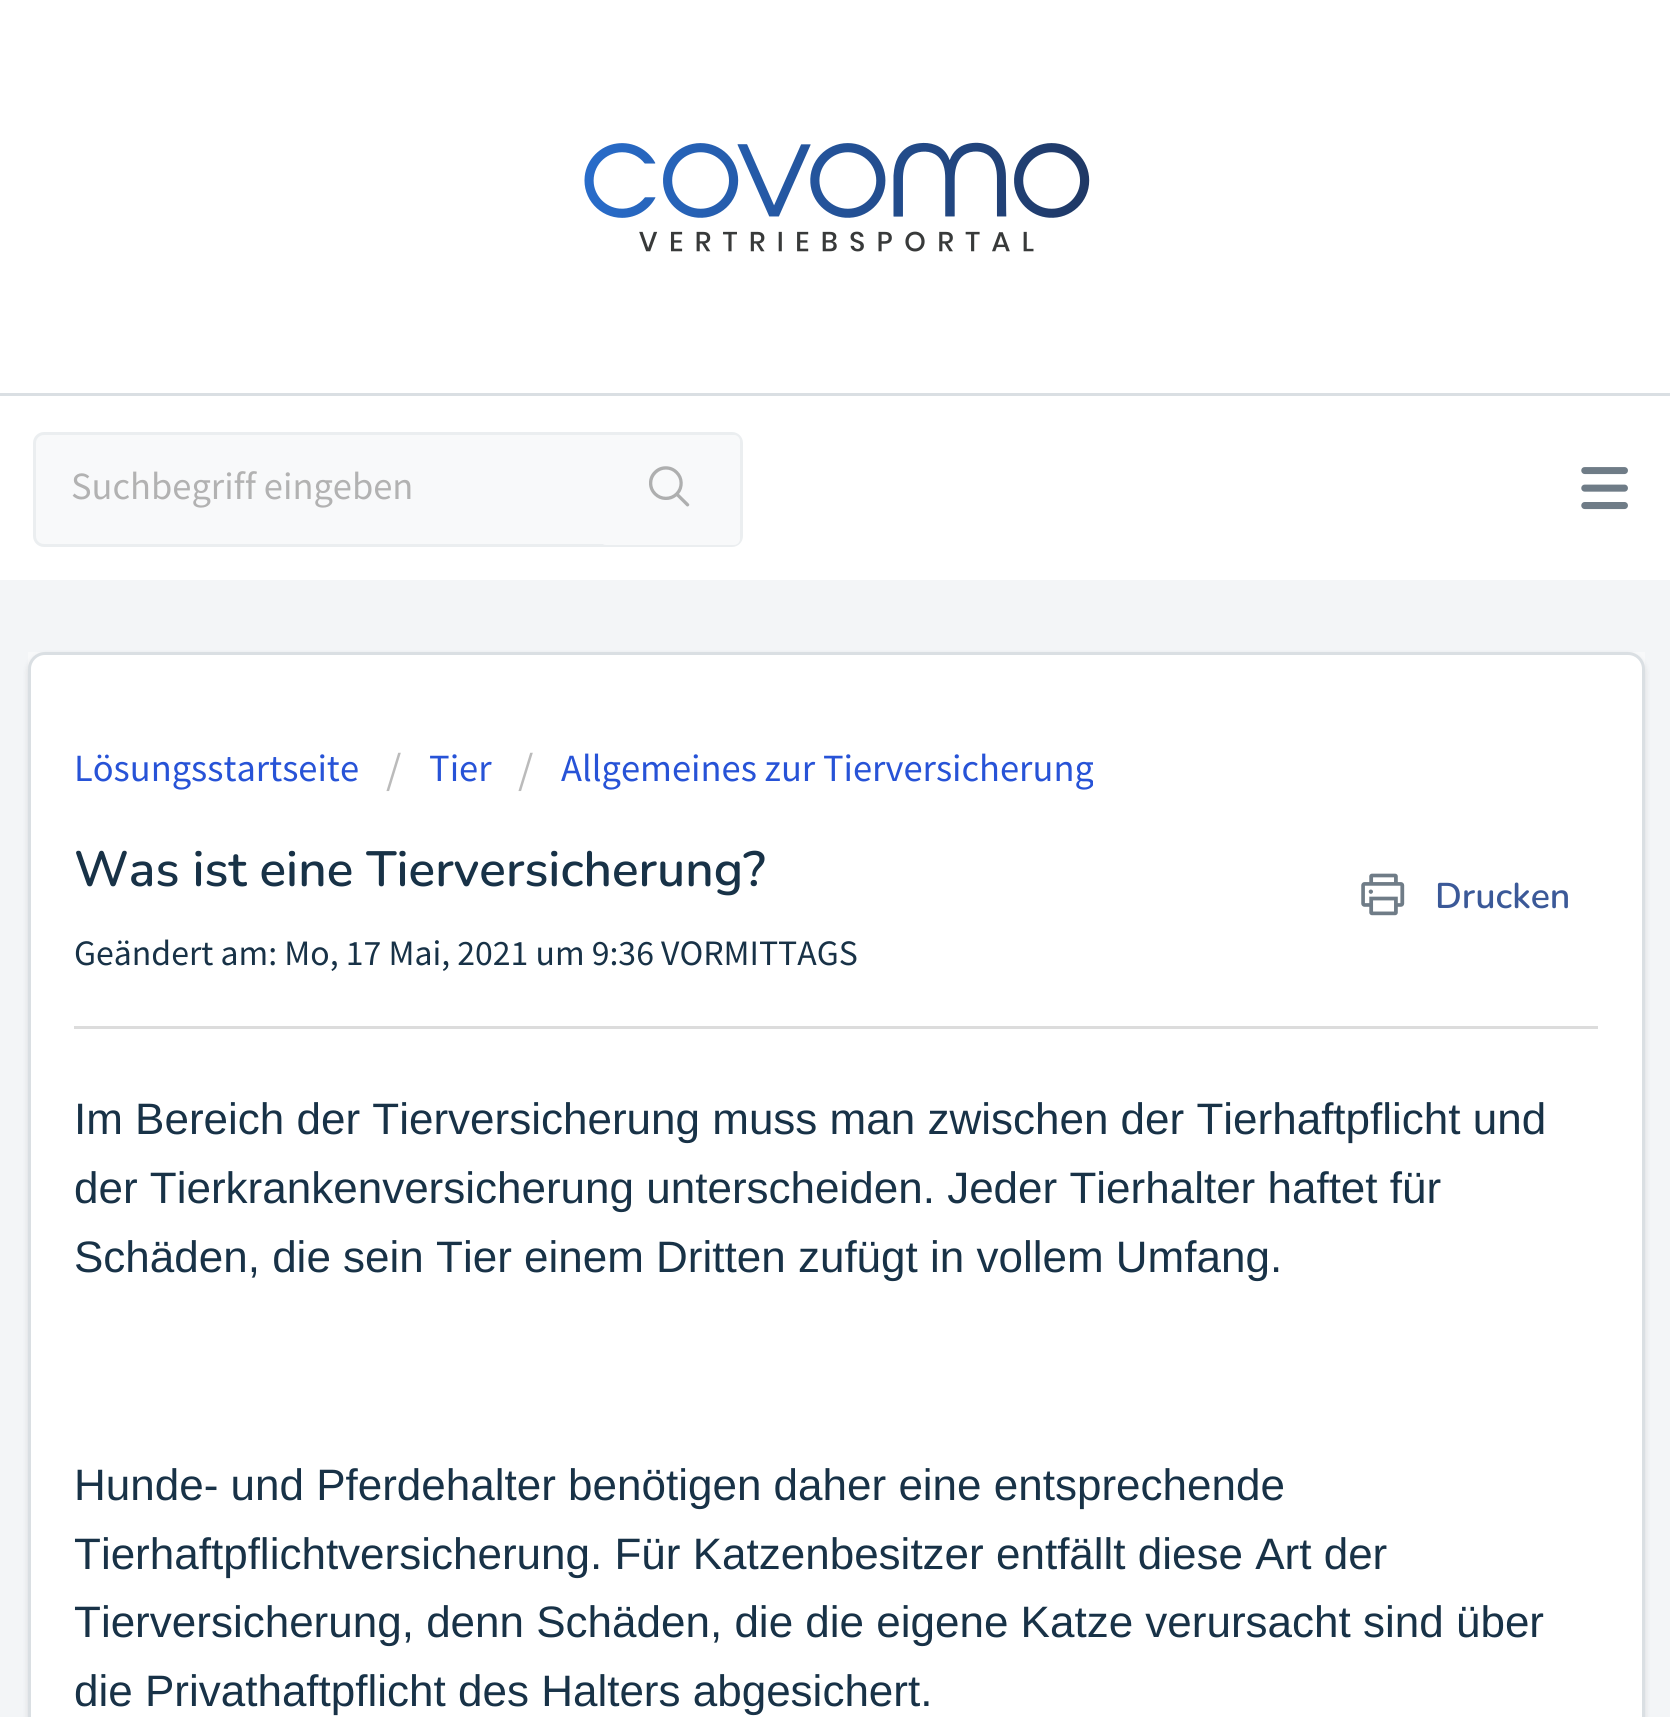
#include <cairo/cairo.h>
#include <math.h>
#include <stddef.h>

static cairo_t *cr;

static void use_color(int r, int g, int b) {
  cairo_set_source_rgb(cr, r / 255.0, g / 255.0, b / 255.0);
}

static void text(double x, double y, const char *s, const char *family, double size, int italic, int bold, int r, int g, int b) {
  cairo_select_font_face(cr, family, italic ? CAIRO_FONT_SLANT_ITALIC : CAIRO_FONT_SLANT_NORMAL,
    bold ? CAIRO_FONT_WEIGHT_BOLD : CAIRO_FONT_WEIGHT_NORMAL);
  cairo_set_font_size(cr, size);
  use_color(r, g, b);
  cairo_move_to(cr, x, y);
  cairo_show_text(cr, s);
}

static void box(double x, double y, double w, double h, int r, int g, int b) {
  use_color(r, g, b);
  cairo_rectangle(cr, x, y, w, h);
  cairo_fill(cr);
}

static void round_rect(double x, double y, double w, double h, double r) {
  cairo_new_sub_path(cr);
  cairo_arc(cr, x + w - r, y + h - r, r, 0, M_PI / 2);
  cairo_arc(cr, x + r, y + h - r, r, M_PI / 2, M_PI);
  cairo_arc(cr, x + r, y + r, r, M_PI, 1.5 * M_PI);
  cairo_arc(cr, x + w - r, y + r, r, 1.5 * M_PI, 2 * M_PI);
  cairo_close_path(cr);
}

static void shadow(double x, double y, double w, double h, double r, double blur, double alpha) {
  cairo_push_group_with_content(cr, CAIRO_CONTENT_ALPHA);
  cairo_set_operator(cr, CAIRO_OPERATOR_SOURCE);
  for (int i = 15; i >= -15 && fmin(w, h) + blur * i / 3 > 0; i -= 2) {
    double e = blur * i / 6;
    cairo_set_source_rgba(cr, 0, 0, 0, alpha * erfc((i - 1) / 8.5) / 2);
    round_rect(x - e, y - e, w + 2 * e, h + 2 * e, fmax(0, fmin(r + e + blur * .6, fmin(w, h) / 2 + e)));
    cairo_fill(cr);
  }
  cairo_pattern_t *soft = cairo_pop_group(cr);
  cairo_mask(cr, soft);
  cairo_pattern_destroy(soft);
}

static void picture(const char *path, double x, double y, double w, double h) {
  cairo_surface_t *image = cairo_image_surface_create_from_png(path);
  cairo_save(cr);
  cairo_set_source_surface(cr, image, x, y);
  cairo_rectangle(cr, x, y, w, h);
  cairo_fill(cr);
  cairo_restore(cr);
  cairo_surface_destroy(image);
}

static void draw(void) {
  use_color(243, 245, 247);
  cairo_paint(cr);
  box(0, 0, 1670, 393, 255, 255, 255);
  box(0, 393, 1670, 3, 218, 223, 227);
  picture("img_01.png", 584, 142, 506, 110);
  box(0, 396, 1670, 184, 255, 255, 255);
  picture("img_02.png", 1581, 467, 47, 43);
  use_color(248, 249, 250);
  round_rect(34.5, 433.5, 707, 112, 9.5);
  cairo_fill_preserve(cr);
  use_color(235, 238, 240);
  cairo_set_line_width(cr, 3);
  cairo_stroke(cr);
  use_color(248, 249, 250);
  round_rect(600, 435, 140, 110, 6);
  cairo_fill(cr);
  picture("img_03.png", 649, 466, 41, 41);
  box(28, 652, 1617, 17, 248, 249, 250);
  use_color(63, 63, 68);
  shadow(28, 655, 1617, 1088, 17, 3, 0.15);
  use_color(255, 255, 255);
  round_rect(29.5, 653.5, 1614, 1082, 15.5);
  cairo_fill_preserve(cr);
  use_color(218, 223, 227);
  cairo_stroke(cr);
  picture("img_04.png", 1361, 873, 44, 43);
  box(74, 1026, 1524, 3, 220, 220, 220);
  text(71, 499, "Suchbegriff eingeben", "Source Sans Pro", 38.5, 0, 0, 178, 178, 178);
  text(74, 781, "Lösungsstartseite", "Source Sans Pro", 38.5, 0, 0, 39, 83, 215);
  text(386, 784, "/", "Source Sans Pro", 44, 0, 0, 187, 187, 187);
  text(429, 781, "Tier", "Source Sans Pro", 38.5, 0, 0, 39, 83, 215);
  text(518, 784, "/", "Source Sans Pro", 44, 0, 0, 187, 187, 187);
  text(561, 781, "Allgemeines zur Tierversicherung", "Source Sans Pro", 38.5, 0, 0, 39, 83, 215);
  text(74, 886, "Was ist eine Tierversicherung?", "Nunito SemiBold", 49.5, 0, 0, 24, 50, 71);
  text(1435, 908, "Drucken", "Nunito SemiBold", 35.75, 0, 0, 59, 89, 152);
  text(74, 965, "Geändert am: Mo, 17 Mai, 2021 um 9:36 VORMITTAGS", "Source Sans Pro", 35.75, 0, 0, 24, 50, 71);
  text(74, 1134, "Im Bereich der Tierversicherung muss man zwischen der Tierhaftpflicht und", "Liberation Sans", 44, 0, 0, 24, 50, 71);
  text(74, 1203, "der Tierkrankenversicherung unterscheiden. Jeder Tierhalter haftet für", "Liberation Sans", 44, 0, 0, 24, 50, 71);
  text(74, 1272, "Schäden, die sein Tier einem Dritten zufügt in vollem Umfang.", "Liberation Sans", 44, 0, 0, 24, 50, 71);
  text(74, 1500, "Hunde- und Pferdehalter benötigen daher eine entsprechende", "Liberation Sans", 44, 0, 0, 24, 50, 71);
  text(74, 1569, "Tierhaftpflichtversicherung. Für Katzenbesitzer entfällt diese Art der", "Liberation Sans", 44, 0, 0, 24, 50, 71);
  text(74, 1637, "Tierversicherung, denn Schäden, die die eigene Katze verursacht sind über", "Liberation Sans", 44, 0, 0, 24, 50, 71);
  text(74, 1706, "die Privathaftpflicht des Halters abgesichert.", "Liberation Sans", 44, 0, 0, 24, 50, 71);
}

int main(void) {
  cairo_surface_t *surface = cairo_image_surface_create(CAIRO_FORMAT_RGB24, 1670, 1717);
  cr = cairo_create(surface);
  cairo_font_options_t *options = cairo_font_options_create();
  cairo_font_options_set_hint_metrics(options, CAIRO_HINT_METRICS_OFF);
  cairo_font_options_set_hint_style(options, CAIRO_HINT_STYLE_NONE);
  cairo_set_font_options(cr, options);
  cairo_set_miter_limit(cr, 4);
  draw();
  cairo_surface_write_to_png(surface, "out.png");
  cairo_font_options_destroy(options);
  cairo_destroy(cr);
  cairo_surface_destroy(surface);
  return 0;
}
